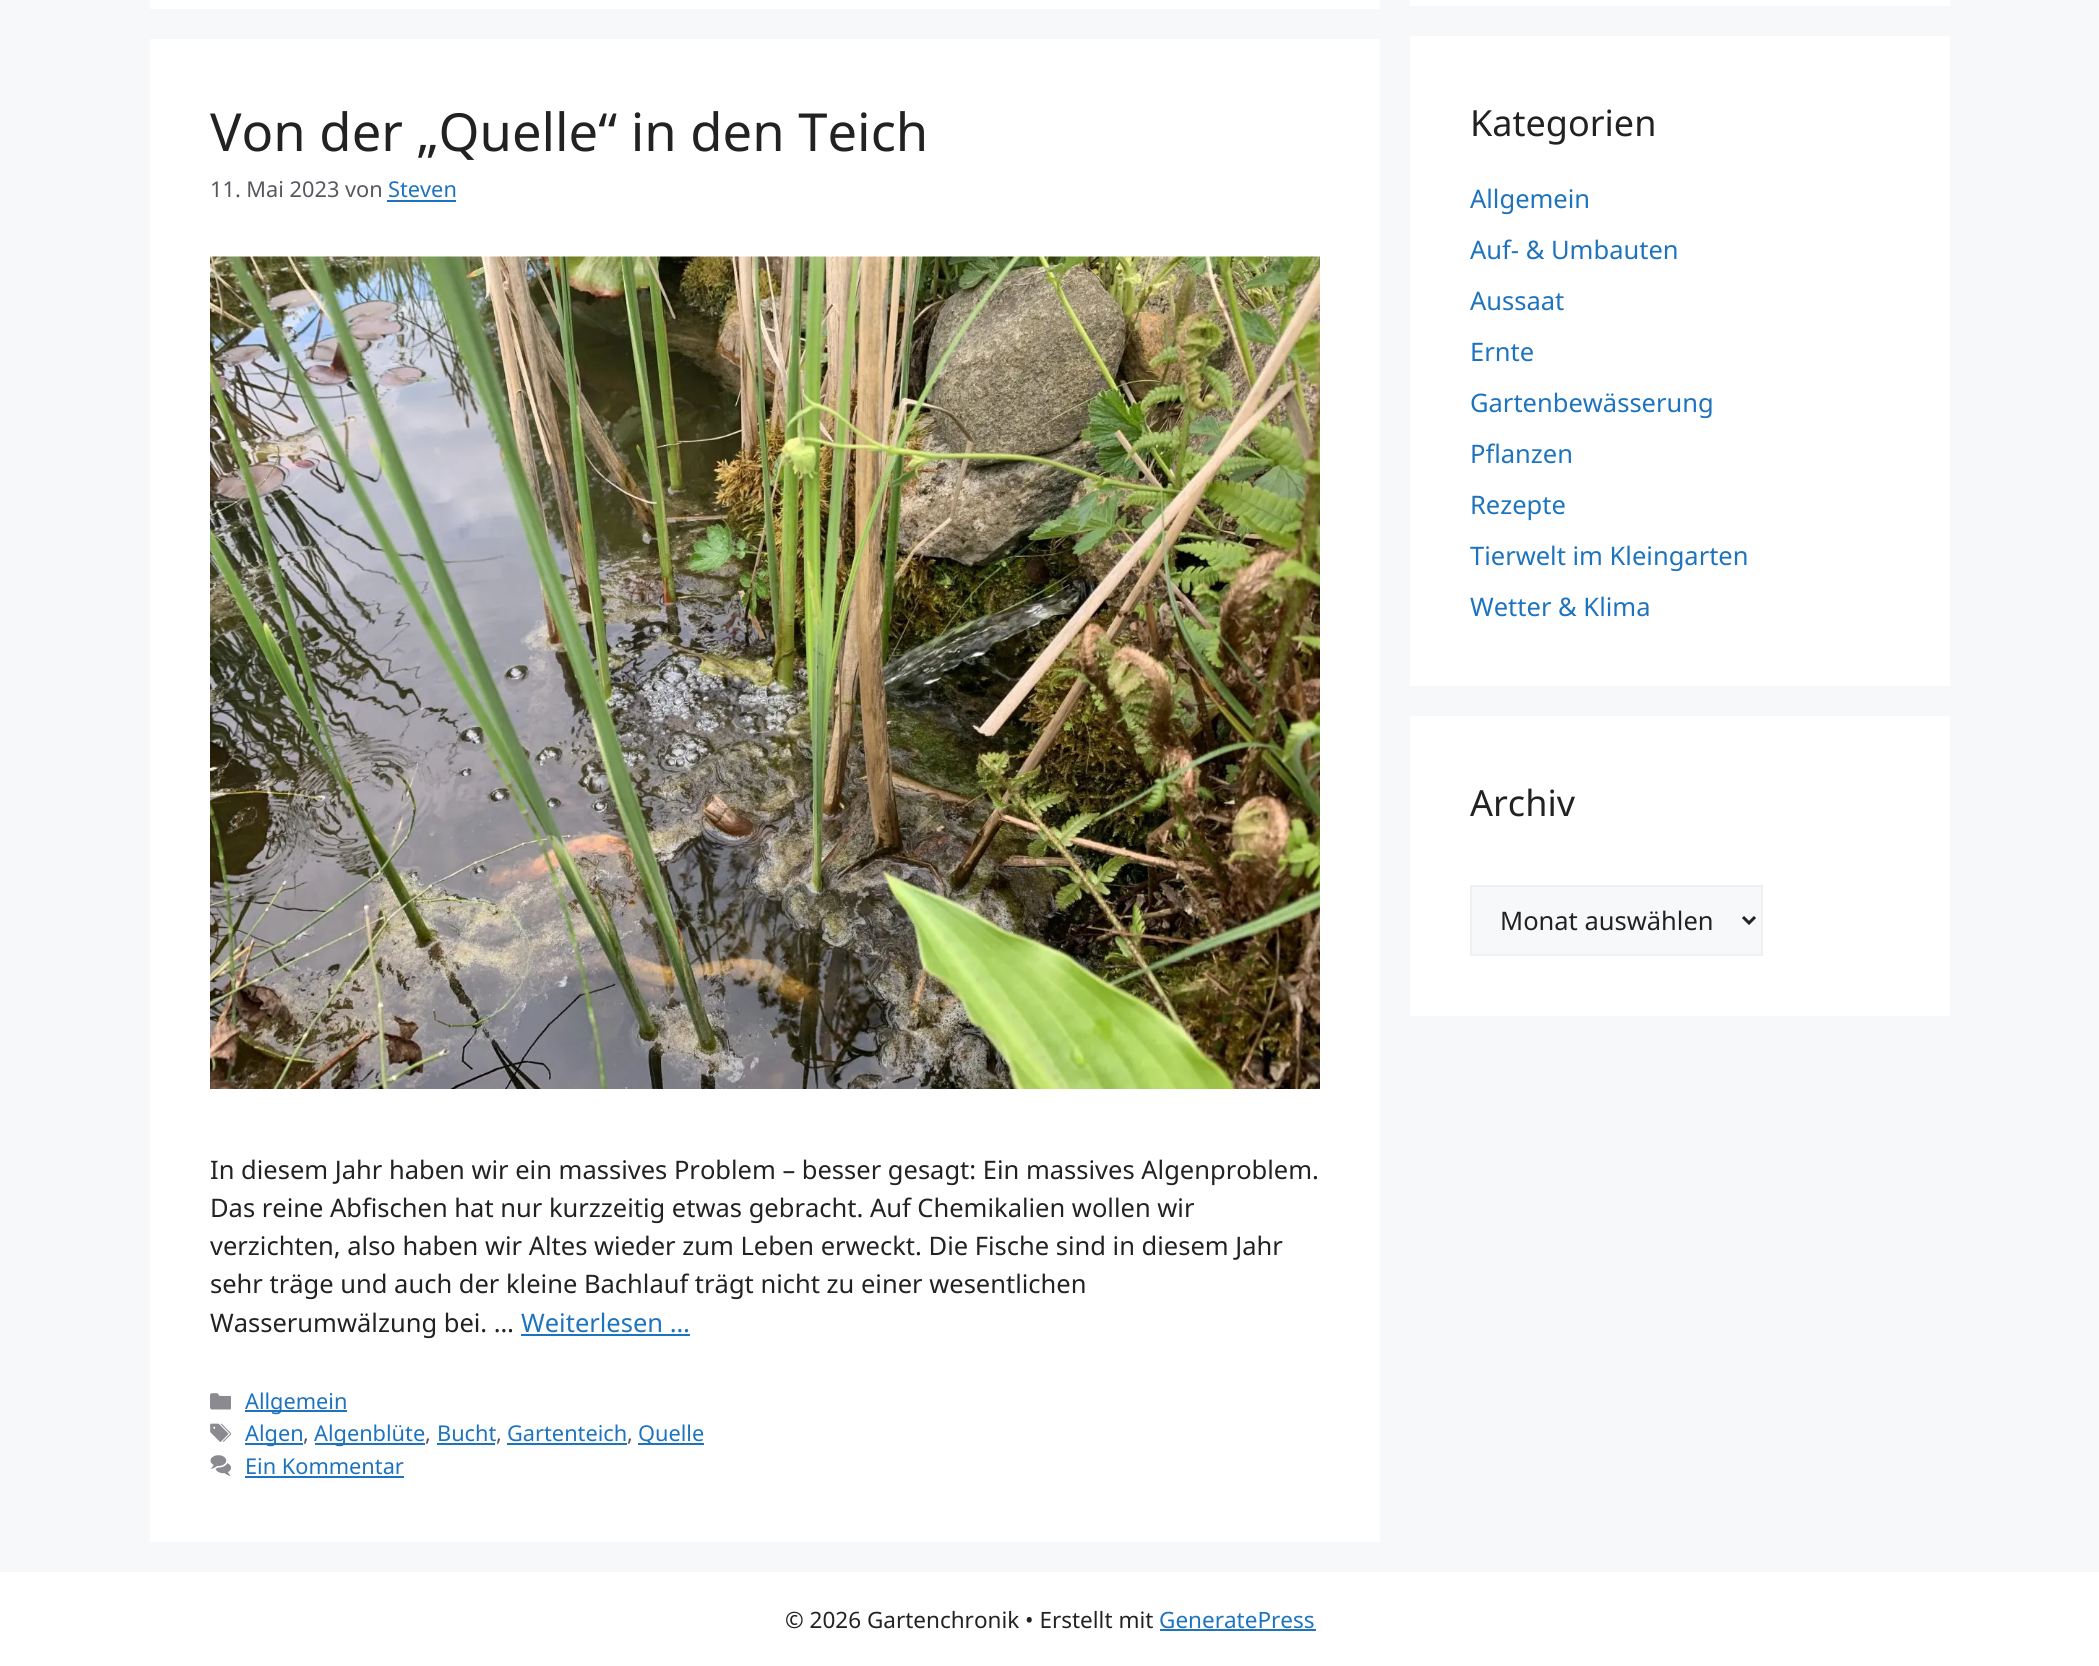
#include <cairo/cairo.h>
#include <math.h>
#include <stddef.h>

static cairo_t *cr;

static void use_color(int r, int g, int b) {
  cairo_set_source_rgb(cr, r / 255.0, g / 255.0, b / 255.0);
}

static void text(double x, double y, const char *s, const char *family, double size, int italic, int bold, int r, int g, int b) {
  cairo_select_font_face(cr, family, italic ? CAIRO_FONT_SLANT_ITALIC : CAIRO_FONT_SLANT_NORMAL,
    bold ? CAIRO_FONT_WEIGHT_BOLD : CAIRO_FONT_WEIGHT_NORMAL);
  cairo_set_font_size(cr, size);
  use_color(r, g, b);
  cairo_move_to(cr, x, y);
  cairo_show_text(cr, s);
}

static void box(double x, double y, double w, double h, int r, int g, int b) {
  use_color(r, g, b);
  cairo_rectangle(cr, x, y, w, h);
  cairo_fill(cr);
}

static void picture(const char *path, double x, double y, double w, double h) {
  cairo_surface_t *image = cairo_image_surface_create_from_png(path);
  cairo_save(cr);
  cairo_set_source_surface(cr, image, x, y);
  cairo_rectangle(cr, x, y, w, h);
  cairo_fill(cr);
  cairo_restore(cr);
  cairo_surface_destroy(image);
}

static void draw(void) {
  use_color(247, 248, 249);
  cairo_paint(cr);
  box(150, 0, 1230, 9, 255, 255, 255);
  box(150, 39, 1230, 1503, 255, 255, 255);
  box(387, 200, 69, 2, 30, 115, 190);
  picture("img_01.png", 210, 256, 1110, 833);
  box(521, 1334, 169, 2, 30, 115, 190);
  picture("img_02.png", 210, 1393, 21, 17);
  box(245, 1410, 102, 2, 30, 115, 190);
  picture("img_03.png", 210, 1423, 21, 19);
  box(245, 1443, 58, 2, 30, 115, 190);
  box(315, 1443, 110, 2, 30, 115, 190);
  box(437, 1443, 58, 2, 30, 115, 190);
  box(507, 1443, 120, 2, 30, 115, 190);
  box(638, 1443, 66, 2, 30, 115, 190);
  picture("img_04.png", 210, 1455, 21, 21);
  box(245, 1476, 159, 2, 30, 115, 190);
  box(1410, 0, 540, 6, 255, 255, 255);
  box(1410, 36, 540, 650, 255, 255, 255);
  box(1410, 716, 540, 300, 255, 255, 255);
  use_color(247, 248, 249);
  cairo_rectangle(cr, 1471, 886, 291, 69);
  cairo_fill_preserve(cr);
  use_color(240, 240, 240);
  cairo_stroke(cr);
  cairo_new_path(cr);
  cairo_move_to(cr, 1743, 917);
  cairo_line_to(cr, 1749, 923);
  cairo_line_to(cr, 1755, 917);
  use_color(34, 34, 34);
  cairo_set_line_width(cr, 3);
  cairo_stroke(cr);
  box(0, 1572, 2099, 94, 255, 255, 255);
  box(1160, 1629, 156, 2, 30, 115, 190);
  text(210, 151, "Von der „Quelle“ in den Teich", "Noto Sans", 52.5, 0, 0, 34, 34, 34);
  text(210, 197, "11. Mai 2023 von", "Noto Sans", 21.75, 0, 0, 87, 87, 96);
  text(388, 197, "Steven", "Noto Sans", 21.75, 0, 0, 30, 115, 190);
  text(210, 1179, "In diesem Jahr haben wir ein massives Problem – besser gesagt: Ein massives Algenproblem.", "Noto Sans", 25.5, 0, 0, 34, 34, 34);
  text(210, 1217, "Das reine Abfischen hat nur kurzzeitig etwas gebracht. Auf Chemikalien wollen wir", "Noto Sans", 25.5, 0, 0, 34, 34, 34);
  text(210, 1255, "verzichten, also haben wir Altes wieder zum Leben erweckt. Die Fische sind in diesem Jahr", "Noto Sans", 25.5, 0, 0, 34, 34, 34);
  text(210, 1293, "sehr träge und auch der kleine Bachlauf trägt nicht zu einer wesentlichen", "Noto Sans", 25.5, 0, 0, 34, 34, 34);
  text(210, 1332, "Wasserumwälzung bei. …", "Noto Sans", 25.5, 0, 0, 34, 34, 34);
  text(521, 1332, "Weiterlesen …", "Noto Sans", 25.5, 0, 0, 30, 115, 190);
  text(245, 1409, "Allgemein", "Noto Sans", 21.75, 0, 0, 30, 115, 190);
  text(245, 1441, "Algen", "Noto Sans", 21.75, 0, 0, 30, 115, 190);
  text(303, 1441, ",", "Noto Sans", 21.75, 0, 0, 87, 87, 96);
  text(314, 1441, "Algenblüte", "Noto Sans", 21.75, 0, 0, 30, 115, 190);
  text(425, 1441, ",", "Noto Sans", 21.75, 0, 0, 87, 87, 96);
  text(437, 1441, "Bucht", "Noto Sans", 21.75, 0, 0, 30, 115, 190);
  text(496, 1441, ",", "Noto Sans", 21.75, 0, 0, 87, 87, 96);
  text(507, 1441, "Gartenteich", "Noto Sans", 21.75, 0, 0, 30, 115, 190);
  text(627, 1441, ",", "Noto Sans", 21.75, 0, 0, 87, 87, 96);
  text(638, 1441, "Quelle", "Noto Sans", 21.75, 0, 0, 30, 115, 190);
  text(245, 1474, "Ein Kommentar", "Noto Sans", 21.75, 0, 0, 30, 115, 190);
  text(1470, 136, "Kategorien", "Noto Sans", 36, 0, 0, 34, 34, 34);
  text(1470, 208, "Allgemein", "Noto Sans", 25.5, 0, 0, 30, 115, 190);
  text(1470, 259, "Auf- & Umbauten", "Noto Sans", 25.5, 0, 0, 30, 115, 190);
  text(1470, 310, "Aussaat", "Noto Sans", 25.5, 0, 0, 30, 115, 190);
  text(1470, 361, "Ernte", "Noto Sans", 25.5, 0, 0, 30, 115, 190);
  text(1470, 412, "Gartenbewässerung", "Noto Sans", 25.5, 0, 0, 30, 115, 190);
  text(1470, 463, "Pflanzen", "Noto Sans", 25.5, 0, 0, 30, 115, 190);
  text(1470, 514, "Rezepte", "Noto Sans", 25.5, 0, 0, 30, 115, 190);
  text(1470, 565, "Tierwelt im Kleingarten", "Noto Sans", 25.5, 0, 0, 30, 115, 190);
  text(1470, 616, "Wetter & Klima", "Noto Sans", 25.5, 0, 0, 30, 115, 190);
  text(1470, 816, "Archiv", "Noto Sans", 36, 0, 0, 34, 34, 34);
  text(1500, 930, "Monat auswählen", "Noto Sans", 25.5, 0, 0, 34, 34, 34);
  text(785, 1628, "© 2026 Gartenchronik • Erstellt mit", "Noto Sans", 22.5, 0, 0, 34, 34, 34);
  text(1159, 1628, "GeneratePress", "Noto Sans", 22.5, 0, 0, 30, 115, 190);
}

int main(void) {
  cairo_surface_t *surface = cairo_image_surface_create(CAIRO_FORMAT_RGB24, 2099, 1666);
  cr = cairo_create(surface);
  cairo_font_options_t *options = cairo_font_options_create();
  cairo_font_options_set_hint_metrics(options, CAIRO_HINT_METRICS_OFF);
  cairo_font_options_set_hint_style(options, CAIRO_HINT_STYLE_NONE);
  cairo_set_font_options(cr, options);
  cairo_set_miter_limit(cr, 4);
  draw();
  cairo_surface_write_to_png(surface, "out.png");
  cairo_font_options_destroy(options);
  cairo_destroy(cr);
  cairo_surface_destroy(surface);
  return 0;
}
